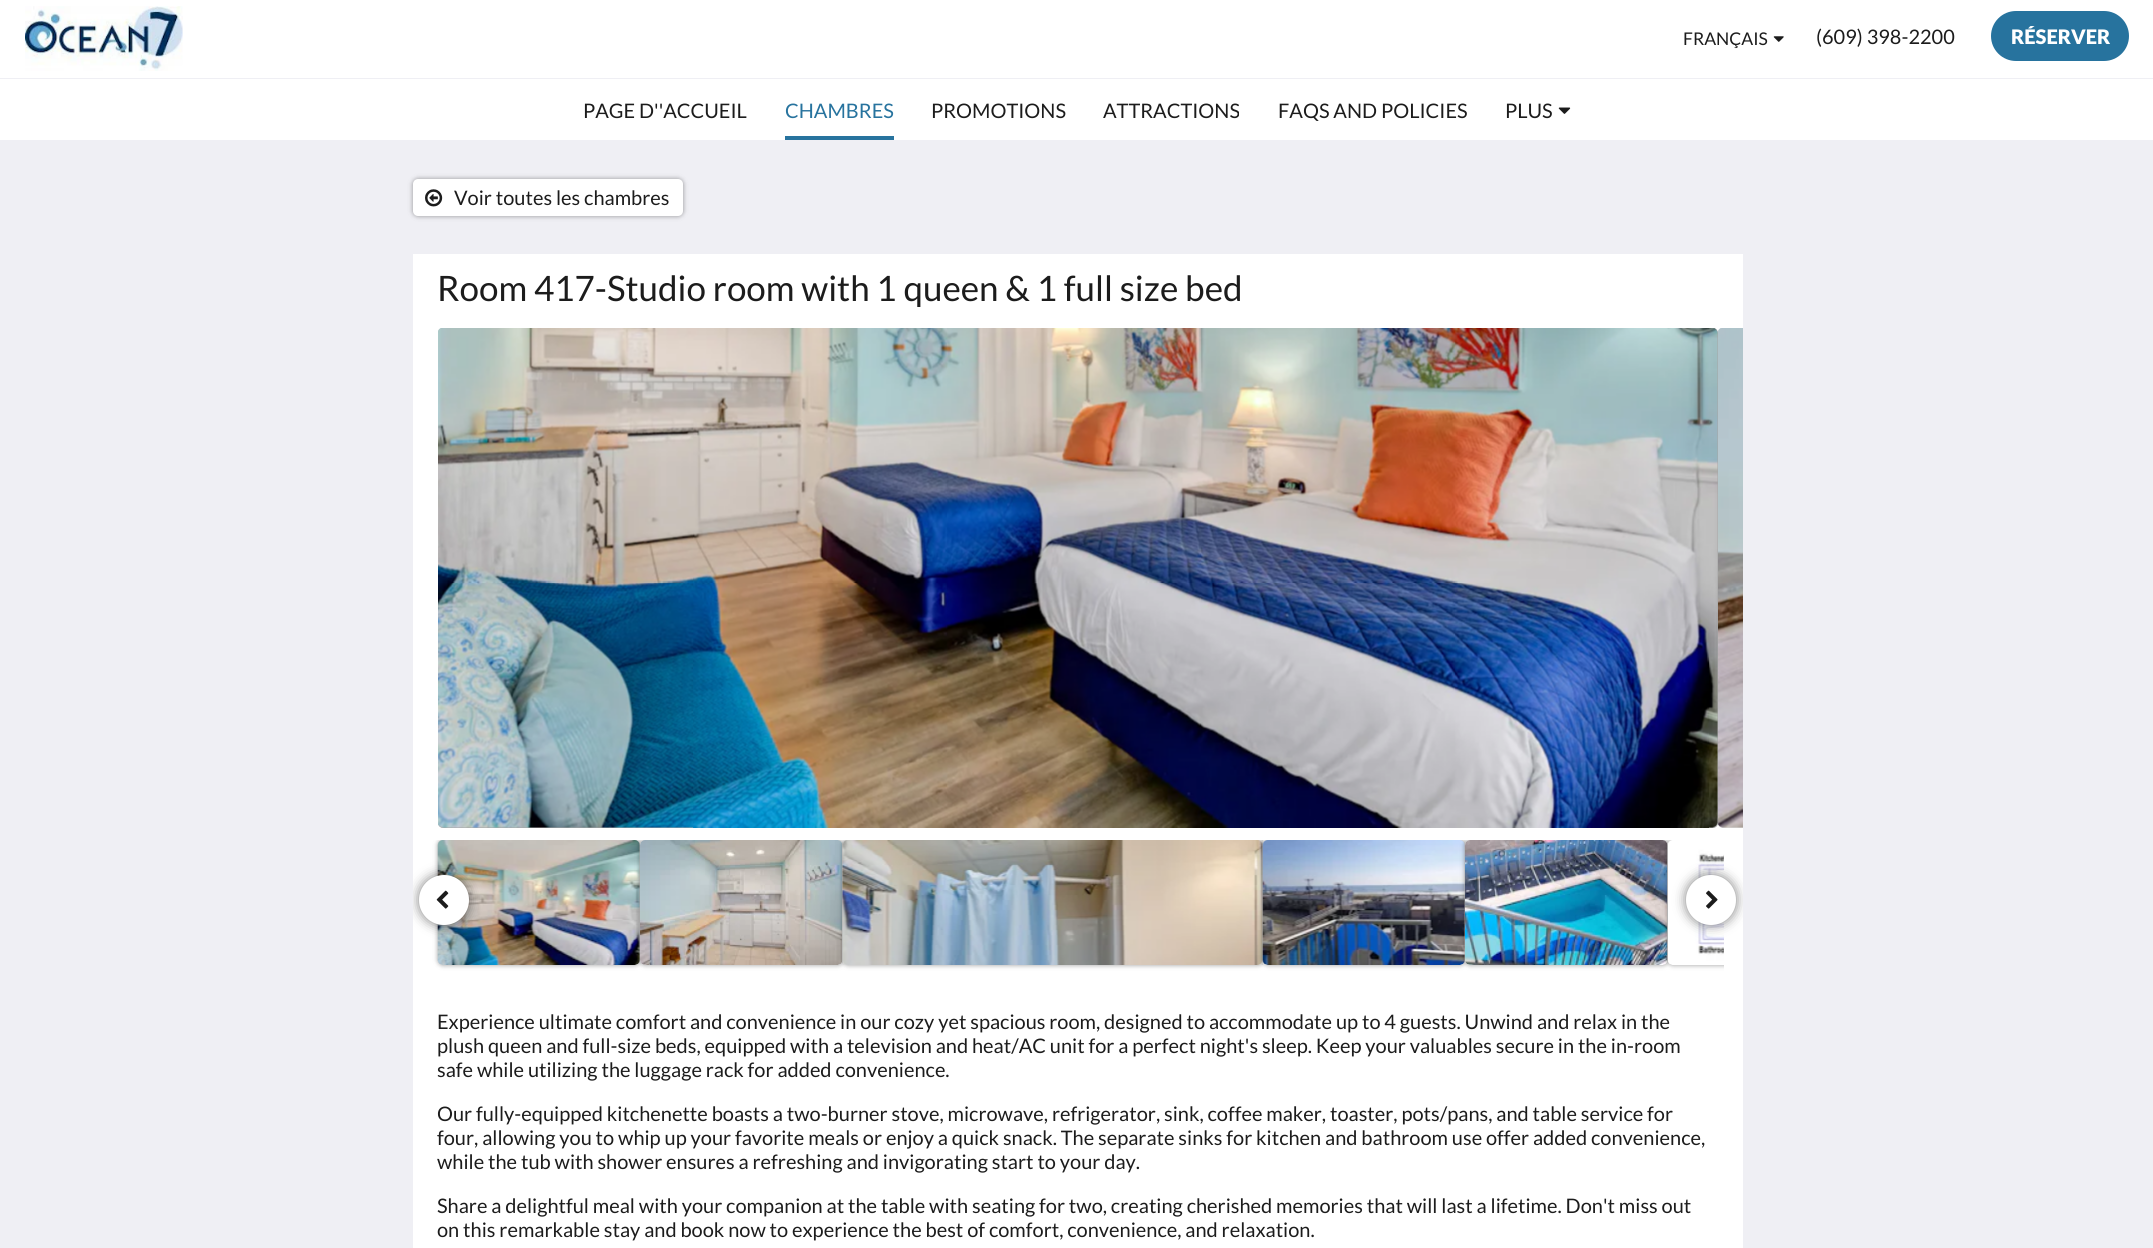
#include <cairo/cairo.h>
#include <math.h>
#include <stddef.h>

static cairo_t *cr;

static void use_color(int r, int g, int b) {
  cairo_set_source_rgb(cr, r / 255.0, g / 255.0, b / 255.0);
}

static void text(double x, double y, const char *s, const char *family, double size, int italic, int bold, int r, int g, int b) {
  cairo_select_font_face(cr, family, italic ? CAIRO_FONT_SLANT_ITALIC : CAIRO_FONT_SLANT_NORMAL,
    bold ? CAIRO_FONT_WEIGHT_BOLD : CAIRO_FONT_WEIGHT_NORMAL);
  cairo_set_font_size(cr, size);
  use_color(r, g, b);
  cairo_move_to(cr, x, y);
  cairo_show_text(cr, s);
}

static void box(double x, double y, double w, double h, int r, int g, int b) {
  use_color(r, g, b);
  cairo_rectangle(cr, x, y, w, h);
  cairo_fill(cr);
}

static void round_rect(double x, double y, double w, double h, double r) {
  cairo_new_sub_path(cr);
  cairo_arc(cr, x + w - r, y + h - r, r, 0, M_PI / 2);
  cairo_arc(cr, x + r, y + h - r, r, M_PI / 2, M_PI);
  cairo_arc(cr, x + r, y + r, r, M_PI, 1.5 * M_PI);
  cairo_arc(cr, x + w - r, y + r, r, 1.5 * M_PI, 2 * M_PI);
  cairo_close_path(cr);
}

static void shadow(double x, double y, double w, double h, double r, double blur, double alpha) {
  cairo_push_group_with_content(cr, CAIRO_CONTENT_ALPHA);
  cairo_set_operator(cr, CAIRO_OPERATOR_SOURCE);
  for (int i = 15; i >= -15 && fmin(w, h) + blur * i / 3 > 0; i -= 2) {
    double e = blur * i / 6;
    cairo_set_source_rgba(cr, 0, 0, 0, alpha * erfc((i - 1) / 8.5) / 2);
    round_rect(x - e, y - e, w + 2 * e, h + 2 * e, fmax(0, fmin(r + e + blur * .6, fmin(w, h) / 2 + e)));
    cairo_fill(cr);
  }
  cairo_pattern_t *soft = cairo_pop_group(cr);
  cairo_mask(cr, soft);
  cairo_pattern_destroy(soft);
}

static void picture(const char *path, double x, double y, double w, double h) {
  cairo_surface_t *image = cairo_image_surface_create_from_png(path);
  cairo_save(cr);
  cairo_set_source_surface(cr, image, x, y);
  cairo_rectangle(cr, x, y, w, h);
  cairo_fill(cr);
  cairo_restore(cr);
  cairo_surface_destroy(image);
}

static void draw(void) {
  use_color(239, 239, 244);
  cairo_paint(cr);
  box(0, 0, 2153, 78, 255, 255, 255);
  picture("img_01.png", 25, 6, 158, 65);
  picture("img_02.png", 1773, 36, 11, 6);
  use_color(39, 115, 158);
  round_rect(1991, 11, 138, 50, 25);
  cairo_fill(cr);
  box(0, 79, 2153, 61, 255, 255, 255);
  box(785, 136, 109, 4, 39, 115, 158);
  picture("img_03.png", 1558, 107, 13, 7);
  box(413, 254, 1330, 994, 255, 255, 255);
  use_color(0, 0, 0);
  shadow(413, 179, 270, 37, 5, 2.5, 0.4);
  use_color(255, 255, 255);
  round_rect(413, 179, 270, 37, 5);
  cairo_fill(cr);
  picture("img_04.png", 425, 189, 18, 18);
  cairo_save(cr);
  round_rect(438, 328, 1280, 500, 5);
  cairo_clip(cr);
  use_color(0, 0, 0);
  shadow(438, 328, 1280, 500, 5, 2.5, 0.4);
  cairo_restore(cr);
  use_color(216, 216, 216);
  round_rect(438, 328, 1280, 500, 5);
  cairo_fill(cr);
  cairo_save(cr);
  round_rect(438, 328, 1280, 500, 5);
  cairo_clip(cr);
  use_color(0, 0, 0);
  shadow(438, 328, 1280, 500, 5, 2.5, 0.4);
  cairo_restore(cr);
  picture("img_05.png", 438, 328, 1280, 500);
  cairo_save(cr);
  round_rect(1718, 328, 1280, 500, 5);
  cairo_clip(cr);
  cairo_set_fill_rule(cr, CAIRO_FILL_RULE_EVEN_ODD);
  cairo_new_path(cr);
  cairo_move_to(cr, 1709, 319);
  cairo_line_to(cr, 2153, 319);
  cairo_line_to(cr, 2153, 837);
  cairo_line_to(cr, 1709, 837);
  cairo_close_path(cr);
  cairo_move_to(cr, 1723, 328);
  cairo_line_to(cr, 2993, 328);
  cairo_curve_to(cr, 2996, 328, 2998, 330, 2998, 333);
  cairo_line_to(cr, 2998, 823);
  cairo_curve_to(cr, 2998, 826, 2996, 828, 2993, 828);
  cairo_line_to(cr, 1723, 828);
  cairo_curve_to(cr, 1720, 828, 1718, 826, 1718, 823);
  cairo_line_to(cr, 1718, 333);
  cairo_curve_to(cr, 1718, 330, 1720, 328, 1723, 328);
  cairo_close_path(cr);
  cairo_clip(cr);
  use_color(0, 0, 0);
  shadow(1718, 328, 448, 500, 5, 2.5, 0.4);
  cairo_restore(cr);
  cairo_new_path(cr);
  cairo_move_to(cr, 1723, 328);
  cairo_line_to(cr, 1743, 328);
  cairo_line_to(cr, 1743, 828);
  cairo_line_to(cr, 1723, 828);
  cairo_curve_to(cr, 1720, 828, 1718, 826, 1718, 823);
  cairo_line_to(cr, 1718, 333);
  cairo_curve_to(cr, 1718, 330, 1720, 328, 1723, 328);
  cairo_close_path(cr);
  cairo_fill(cr);
  cairo_save(cr);
  round_rect(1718, 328, 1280, 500, 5);
  cairo_clip(cr);
  cairo_set_fill_rule(cr, CAIRO_FILL_RULE_EVEN_ODD);
  cairo_new_path(cr);
  cairo_move_to(cr, 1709, 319);
  cairo_line_to(cr, 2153, 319);
  cairo_line_to(cr, 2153, 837);
  cairo_line_to(cr, 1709, 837);
  cairo_close_path(cr);
  cairo_move_to(cr, 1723, 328);
  cairo_line_to(cr, 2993, 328);
  cairo_curve_to(cr, 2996, 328, 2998, 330, 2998, 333);
  cairo_line_to(cr, 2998, 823);
  cairo_curve_to(cr, 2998, 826, 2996, 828, 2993, 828);
  cairo_line_to(cr, 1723, 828);
  cairo_curve_to(cr, 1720, 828, 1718, 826, 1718, 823);
  cairo_line_to(cr, 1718, 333);
  cairo_curve_to(cr, 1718, 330, 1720, 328, 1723, 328);
  cairo_close_path(cr);
  cairo_clip(cr);
  use_color(0, 0, 0);
  shadow(1718, 328, 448, 500, 5, 2.5, 0.4);
  cairo_restore(cr);
  picture("img_06.png", 1718, 328, 25, 500);
  cairo_save(cr);
  cairo_rectangle(cr, 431, 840, 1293, 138);
  cairo_clip(cr);
  use_color(0, 0, 0);
  shadow(438, 840, 202, 125, 5, 2.5, 0.4);
  cairo_restore(cr);
  round_rect(438, 840, 202, 125, 5);
  cairo_fill(cr);
  picture("img_07.png", 437, 840, 203, 125);
  cairo_save(cr);
  cairo_rectangle(cr, 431, 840, 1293, 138);
  cairo_clip(cr);
  use_color(0, 0, 0);
  shadow(640, 840, 203, 125, 5, 2.5, 0.4);
  cairo_restore(cr);
  round_rect(640, 840, 203, 125, 5);
  cairo_fill(cr);
  picture("img_08.png", 640, 840, 203, 125);
  cairo_save(cr);
  cairo_rectangle(cr, 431, 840, 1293, 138);
  cairo_clip(cr);
  use_color(0, 0, 0);
  shadow(843, 840, 420, 125, 5, 2.5, 0.4);
  cairo_restore(cr);
  box(843, 840, 420, 125, 216, 216, 216);
  picture("img_09.png", 842, 840, 421, 125);
  cairo_save(cr);
  cairo_rectangle(cr, 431, 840, 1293, 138);
  cairo_clip(cr);
  use_color(0, 0, 0);
  shadow(1263, 840, 202, 125, 5, 2.5, 0.4);
  cairo_restore(cr);
  round_rect(1263, 840, 202, 125, 5);
  cairo_fill(cr);
  picture("img_10.png", 1262, 840, 203, 125);
  cairo_save(cr);
  cairo_rectangle(cr, 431, 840, 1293, 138);
  cairo_clip(cr);
  use_color(0, 0, 0);
  shadow(1465, 840, 203, 125, 5, 2.5, 0.4);
  cairo_restore(cr);
  round_rect(1465, 840, 203, 125, 5);
  cairo_fill(cr);
  picture("img_11.png", 1465, 840, 203, 125);
  cairo_save(cr);
  cairo_rectangle(cr, 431, 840, 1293, 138);
  cairo_clip(cr);
  use_color(0, 0, 0);
  shadow(1668, 840, 202, 125, 5, 2.5, 0.4);
  cairo_restore(cr);
  cairo_new_path(cr);
  cairo_move_to(cr, 1673, 840);
  cairo_line_to(cr, 1724, 840);
  cairo_line_to(cr, 1724, 965);
  cairo_line_to(cr, 1673, 965);
  cairo_curve_to(cr, 1670, 965, 1668, 963, 1668, 960);
  cairo_line_to(cr, 1668, 845);
  cairo_curve_to(cr, 1668, 842, 1670, 840, 1673, 840);
  cairo_close_path(cr);
  cairo_fill(cr);
  picture("img_12.png", 1668, 840, 56, 125);
  cairo_save(cr);
  cairo_rectangle(cr, 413, 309, 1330, 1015);
  cairo_clip(cr);
  use_color(0, 0, 0);
  shadow(419, 875, 50, 50, 25, 6, 0.5);
  cairo_restore(cr);
  use_color(255, 255, 255);
  cairo_arc(cr, 444, 900, 25, 0, 2 * M_PI);
  cairo_fill(cr);
  picture("img_13.png", 436, 890, 13, 19);
  cairo_save(cr);
  cairo_rectangle(cr, 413, 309, 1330, 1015);
  cairo_clip(cr);
  use_color(0, 0, 0);
  shadow(1686, 875, 50, 50, 25, 6, 0.5);
  cairo_restore(cr);
  cairo_arc(cr, 1711, 900, 25, 0, 2 * M_PI);
  cairo_fill(cr);
  picture("img_14.png", 1706, 890, 12, 19);
  text(1683, 45, "FRANÇAIS", "Lato", 17.5, 0, 0, 28, 28, 28);
  text(1816, 44, "(609) 398-2200", "Lato", 20, 0, 0, 28, 28, 28);
  text(2011, 44, "RÉSERVER", "Lato Black", 20, 0, 0, 255, 255, 255);
  text(583, 118, "PAGE D''ACCUEIL", "Lato", 20, 0, 0, 28, 28, 28);
  text(785, 118, "CHAMBRES", "Lato", 20, 0, 0, 39, 115, 158);
  text(931, 118, "PROMOTIONS", "Lato", 20, 0, 0, 28, 28, 28);
  text(1103, 118, "ATTRACTIONS", "Lato", 20, 0, 0, 28, 28, 28);
  text(1278, 118, "FAQS AND POLICIES", "Lato", 20, 0, 0, 28, 28, 28);
  text(1505, 118, "PLUS", "Lato", 20, 0, 0, 28, 28, 28);
  text(454, 205, "Voir toutes les chambres", "Lato", 20, 0, 0, 28, 28, 28);
  text(437, 301, "Room 417-Studio room with 1 queen & 1 full size bed", "Lato", 35, 0, 0, 28, 28, 28);
  text(437, 1029, "Experience ultimate comfort and convenience in our cozy yet spacious room, designed to accommodate up to 4 guests. Unwind and relax in the", "Lato", 20, 0, 0, 28, 28, 28);
  text(437, 1053, "plush queen and full-size beds, equipped with a television and heat/AC unit for a perfect night's sleep. Keep your valuables secure in the in-room", "Lato", 20, 0, 0, 28, 28, 28);
  text(437, 1077, "safe while utilizing the luggage rack for added convenience.", "Lato", 20, 0, 0, 28, 28, 28);
  text(437, 1121, "Our fully-equipped kitchenette boasts a two-burner stove, microwave, refrigerator, sink, coffee maker, toaster, pots/pans, and table service for", "Lato", 20, 0, 0, 28, 28, 28);
  text(437, 1145, "four, allowing you to whip up your favorite meals or enjoy a quick snack. The separate sinks for kitchen and bathroom use offer added convenience,", "Lato", 20, 0, 0, 28, 28, 28);
  text(437, 1169, "while the tub with shower ensures a refreshing and invigorating start to your day.", "Lato", 20, 0, 0, 28, 28, 28);
  text(437, 1213, "Share a delightful meal with your companion at the table with seating for two, creating cherished memories that will last a lifetime. Don't miss out", "Lato", 20, 0, 0, 28, 28, 28);
  text(437, 1237, "on this remarkable stay and book now to experience the best of comfort, convenience, and relaxation.", "Lato", 20, 0, 0, 28, 28, 28);
}

int main(void) {
  cairo_surface_t *surface = cairo_image_surface_create(CAIRO_FORMAT_RGB24, 2153, 1248);
  cr = cairo_create(surface);
  cairo_font_options_t *options = cairo_font_options_create();
  cairo_font_options_set_hint_metrics(options, CAIRO_HINT_METRICS_OFF);
  cairo_font_options_set_hint_style(options, CAIRO_HINT_STYLE_NONE);
  cairo_set_font_options(cr, options);
  cairo_set_miter_limit(cr, 4);
  draw();
  cairo_surface_write_to_png(surface, "out.png");
  cairo_font_options_destroy(options);
  cairo_destroy(cr);
  cairo_surface_destroy(surface);
  return 0;
}
